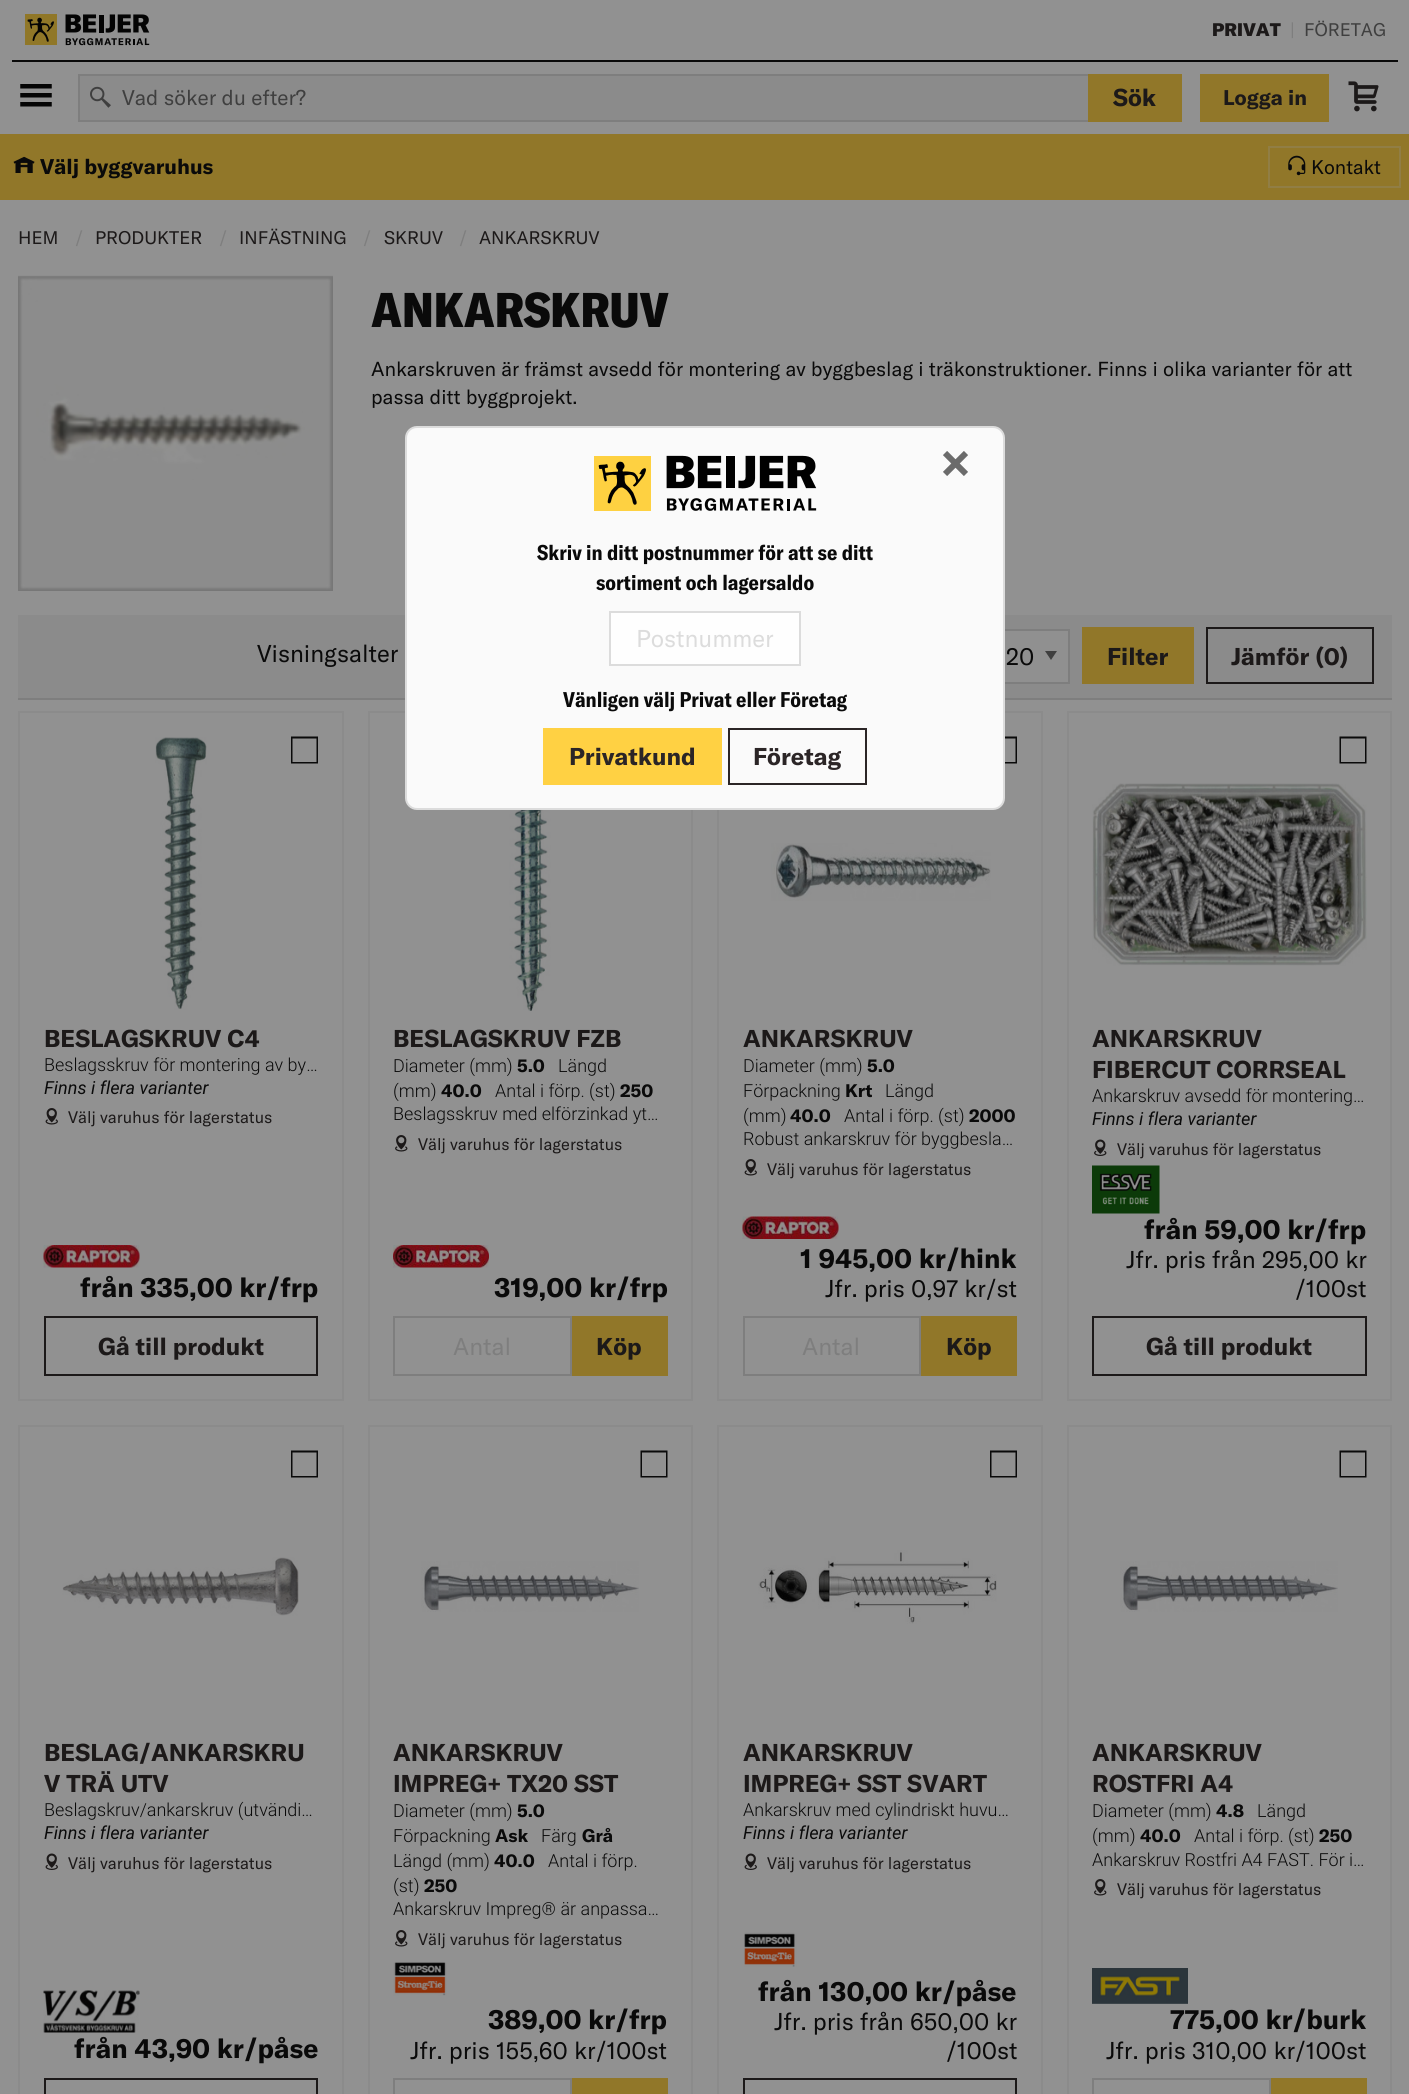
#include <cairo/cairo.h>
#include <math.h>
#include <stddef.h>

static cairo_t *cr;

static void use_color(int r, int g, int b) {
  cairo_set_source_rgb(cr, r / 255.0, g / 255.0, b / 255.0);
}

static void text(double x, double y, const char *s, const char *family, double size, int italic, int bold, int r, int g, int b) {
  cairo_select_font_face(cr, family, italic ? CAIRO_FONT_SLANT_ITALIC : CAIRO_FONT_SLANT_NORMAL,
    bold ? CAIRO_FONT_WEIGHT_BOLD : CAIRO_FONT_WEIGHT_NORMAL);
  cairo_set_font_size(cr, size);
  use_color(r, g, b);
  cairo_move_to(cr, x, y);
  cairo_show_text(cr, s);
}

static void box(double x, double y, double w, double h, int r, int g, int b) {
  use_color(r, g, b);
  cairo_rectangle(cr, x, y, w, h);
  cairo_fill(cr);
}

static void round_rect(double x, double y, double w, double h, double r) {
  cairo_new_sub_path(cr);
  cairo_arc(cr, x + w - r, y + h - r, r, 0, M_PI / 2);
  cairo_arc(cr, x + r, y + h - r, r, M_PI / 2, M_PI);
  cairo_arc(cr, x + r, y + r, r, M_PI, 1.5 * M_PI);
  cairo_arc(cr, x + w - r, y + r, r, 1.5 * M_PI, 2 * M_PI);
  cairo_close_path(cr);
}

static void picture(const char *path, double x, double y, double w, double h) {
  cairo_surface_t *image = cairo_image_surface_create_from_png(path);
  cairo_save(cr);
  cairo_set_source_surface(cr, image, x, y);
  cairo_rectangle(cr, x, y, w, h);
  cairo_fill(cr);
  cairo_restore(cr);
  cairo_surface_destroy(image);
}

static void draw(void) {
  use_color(145, 145, 145);
  cairo_paint(cr);
  box(12, 60, 1386, 2, 10, 10, 10);
  picture("img_01.png", 25, 14, 125, 32);
  picture("img_02.png", 20, 84, 32, 23);
  box(80, 76, 1008, 44, 139, 139, 139);
  cairo_rectangle(cr, 79, 75, 1102, 46);
  use_color(126, 126, 126);
  cairo_stroke(cr);
  picture("img_03.png", 90, 86, 21, 22);
  box(1088, 74, 94, 48, 145, 119, 41);
  box(1200, 74, 129, 48, 145, 119, 41);
  picture("img_04.png", 1348, 81, 31, 31);
  box(0, 134, 1409, 66, 145, 119, 41);
  picture("img_05.png", 13, 156, 22, 17);
  cairo_rectangle(cr, 1269, 147, 131, 40);
  use_color(145, 126, 69);
  cairo_stroke(cr);
  picture("img_06.png", 1288, 155, 18, 21);
  picture("img_07.png", 18, 275, 315, 316);
  box(18, 615, 1374, 83, 139, 139, 139);
  box(18, 698, 1374, 2, 126, 126, 126);
  box(1005, 631, 63, 51, 144, 144, 144);
  use_color(63, 63, 63);
  cairo_new_path(cr);
  cairo_move_to(cr, 1045, 651);
  cairo_line_to(cr, 1057, 651);
  cairo_line_to(cr, 1051, 660);
  cairo_close_path(cr);
  cairo_fill(cr);
  cairo_rectangle(cr, 996, 630, 73, 53);
  use_color(126, 126, 126);
  cairo_stroke(cr);
  box(1082, 627, 112, 57, 145, 119, 41);
  cairo_rectangle(cr, 1207, 628, 166, 55);
  use_color(28, 25, 25);
  cairo_stroke(cr);
  cairo_rectangle(cr, 19, 712, 324, 688);
  use_color(139, 139, 139);
  cairo_stroke(cr);
  use_color(10, 10, 10);
  cairo_new_path(cr);
  cairo_move_to(cr, 291, 736.5);
  cairo_line_to(cr, 291, 763.5);
  cairo_line_to(cr, 318, 763.5);
  cairo_line_to(cr, 318, 736.5);
  cairo_close_path(cr);
  cairo_move_to(cr, 316.5, 762);
  cairo_line_to(cr, 292.5, 762);
  cairo_line_to(cr, 292.5, 738.5);
  cairo_line_to(cr, 316.5, 738.5);
  cairo_close_path(cr);
  cairo_fill(cr);
  picture("img_08.png", 155, 737, 52, 273);
  picture("img_09.png", 45, 1108, 13, 17);
  picture("img_10.png", 43, 1245, 97, 23);
  cairo_rectangle(cr, 45, 1317, 272, 58);
  use_color(28, 25, 25);
  cairo_stroke(cr);
  cairo_rectangle(cr, 369, 712, 323, 688);
  use_color(139, 139, 139);
  cairo_stroke(cr);
  picture("img_11.png", 503, 810, 55, 201);
  picture("img_12.png", 395, 1135, 13, 17);
  picture("img_13.png", 393, 1245, 96, 23);
  cairo_rectangle(cr, 394, 1317, 177, 58);
  use_color(126, 126, 126);
  cairo_stroke(cr);
  box(572, 1316, 96, 60, 145, 119, 41);
  cairo_rectangle(cr, 718, 712, 324, 688);
  use_color(139, 139, 139);
  cairo_stroke(cr);
  use_color(10, 10, 10);
  cairo_new_path(cr);
  cairo_move_to(cr, 990, 736.5);
  cairo_line_to(cr, 990, 763.5);
  cairo_line_to(cr, 1017, 763.5);
  cairo_line_to(cr, 1017, 736.5);
  cairo_close_path(cr);
  cairo_move_to(cr, 1015.5, 762);
  cairo_line_to(cr, 991.5, 762);
  cairo_line_to(cr, 991.5, 738.5);
  cairo_line_to(cr, 1015.5, 738.5);
  cairo_close_path(cr);
  cairo_fill(cr);
  picture("img_14.png", 771, 843, 220, 58);
  picture("img_09.png", 744, 1159, 13, 17);
  picture("img_15.png", 742, 1216, 97, 23);
  cairo_rectangle(cr, 744, 1317, 176, 58);
  use_color(126, 126, 126);
  cairo_stroke(cr);
  box(921, 1316, 96, 60, 145, 119, 41);
  cairo_rectangle(cr, 1068, 712, 323, 688);
  use_color(139, 139, 139);
  cairo_stroke(cr);
  use_color(10, 10, 10);
  cairo_new_path(cr);
  cairo_move_to(cr, 1339.5, 736.5);
  cairo_line_to(cr, 1339.5, 763.5);
  cairo_line_to(cr, 1366.5, 763.5);
  cairo_line_to(cr, 1366.5, 736.5);
  cairo_close_path(cr);
  cairo_move_to(cr, 1365, 762);
  cairo_line_to(cr, 1341, 762);
  cairo_line_to(cr, 1341, 738.5);
  cairo_line_to(cr, 1365, 738.5);
  cairo_close_path(cr);
  cairo_fill(cr);
  picture("img_16.png", 1092, 783, 275, 183);
  picture("img_17.png", 1094, 1139, 13, 17);
  picture("img_18.png", 1092, 1165, 68, 49);
  cairo_rectangle(cr, 1093, 1317, 273, 58);
  use_color(28, 25, 25);
  cairo_stroke(cr);
  cairo_rectangle(cr, 19, 1426, 324, 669);
  use_color(139, 139, 139);
  cairo_stroke(cr);
  use_color(10, 10, 10);
  cairo_new_path(cr);
  cairo_move_to(cr, 291, 1450.5);
  cairo_line_to(cr, 291, 1477.5);
  cairo_line_to(cr, 318, 1477.5);
  cairo_line_to(cr, 318, 1450.5);
  cairo_close_path(cr);
  cairo_move_to(cr, 316.5, 1476);
  cairo_line_to(cr, 292.5, 1476);
  cairo_line_to(cr, 292.5, 1452.5);
  cairo_line_to(cr, 316.5, 1452.5);
  cairo_close_path(cr);
  cairo_fill(cr);
  picture("img_19.png", 62, 1557, 237, 59);
  picture("img_20.png", 45, 1853, 13, 17);
  picture("img_21.png", 43, 1990, 97, 43);
  cairo_rectangle(cr, 45, 2079, 272, 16);
  use_color(28, 25, 25);
  cairo_stroke(cr);
  cairo_rectangle(cr, 369, 1426, 323, 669);
  use_color(139, 139, 139);
  cairo_stroke(cr);
  use_color(10, 10, 10);
  cairo_new_path(cr);
  cairo_move_to(cr, 640.5, 1450.5);
  cairo_line_to(cr, 640.5, 1477.5);
  cairo_line_to(cr, 667.5, 1477.5);
  cairo_line_to(cr, 667.5, 1450.5);
  cairo_close_path(cr);
  cairo_move_to(cr, 666, 1476);
  cairo_line_to(cr, 642, 1476);
  cairo_line_to(cr, 642, 1452.5);
  cairo_line_to(cr, 666, 1452.5);
  cairo_close_path(cr);
  cairo_fill(cr);
  picture("img_22.png", 421, 1561, 218, 51);
  picture("img_12.png", 395, 1930, 13, 17);
  picture("img_23.png", 393, 1962, 54, 34);
  cairo_rectangle(cr, 394, 2079, 177, 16);
  use_color(126, 126, 126);
  cairo_stroke(cr);
  box(572, 2078, 96, 16, 145, 119, 41);
  cairo_rectangle(cr, 718, 1426, 324, 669);
  use_color(139, 139, 139);
  cairo_stroke(cr);
  use_color(10, 10, 10);
  cairo_new_path(cr);
  cairo_move_to(cr, 990, 1450.5);
  cairo_line_to(cr, 990, 1477.5);
  cairo_line_to(cr, 1017, 1477.5);
  cairo_line_to(cr, 1017, 1450.5);
  cairo_close_path(cr);
  cairo_move_to(cr, 1015.5, 1476);
  cairo_line_to(cr, 991.5, 1476);
  cairo_line_to(cr, 991.5, 1452.5);
  cairo_line_to(cr, 1015.5, 1452.5);
  cairo_close_path(cr);
  cairo_fill(cr);
  picture("img_24.png", 758, 1550, 239, 74);
  picture("img_20.png", 744, 1853, 13, 17);
  picture("img_25.png", 744, 1932, 53, 35);
  cairo_rectangle(cr, 744, 2079, 272, 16);
  use_color(28, 25, 25);
  cairo_stroke(cr);
  cairo_rectangle(cr, 1068, 1426, 323, 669);
  use_color(139, 139, 139);
  cairo_stroke(cr);
  use_color(10, 10, 10);
  cairo_new_path(cr);
  cairo_move_to(cr, 1339.5, 1450.5);
  cairo_line_to(cr, 1339.5, 1477.5);
  cairo_line_to(cr, 1366.5, 1477.5);
  cairo_line_to(cr, 1366.5, 1450.5);
  cairo_close_path(cr);
  cairo_move_to(cr, 1365, 1476);
  cairo_line_to(cr, 1341, 1476);
  cairo_line_to(cr, 1341, 1452.5);
  cairo_line_to(cr, 1365, 1452.5);
  cairo_close_path(cr);
  cairo_fill(cr);
  picture("img_22.png", 1120, 1561, 218, 51);
  picture("img_12.png", 1094, 1879, 13, 17);
  picture("img_26.png", 1092, 1968, 96, 36);
  cairo_rectangle(cr, 1093, 2079, 177, 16);
  use_color(126, 126, 126);
  cairo_stroke(cr);
  box(1271, 2078, 96, 16, 145, 119, 41);
  use_color(250, 250, 250);
  round_rect(406, 427, 598, 382, 11);
  cairo_fill_preserve(cr);
  use_color(220, 220, 220);
  cairo_stroke(cr);
  picture("img_27.png", 943, 451, 25, 25);
  picture("img_28.png", 594, 455, 223, 56);
  use_color(254, 254, 254);
  cairo_rectangle(cr, 610, 612, 190, 53);
  cairo_fill_preserve(cr);
  use_color(220, 220, 220);
  cairo_stroke(cr);
  box(543, 728, 179, 57, 255, 209, 67);
  cairo_rectangle(cr, 729, 729, 137, 55);
  use_color(43, 37, 38);
  cairo_stroke(cr);
  text(1212, 36, "PRIVAT", "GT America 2 Black", 18, 0, 0, 28, 25, 25);
  text(1290, 36, "|", "GT America", 18, 0, 0, 126, 126, 126);
  text(1304, 36, "FÖRETAG", "GT America", 18, 0, 0, 63, 63, 63);
  text(122, 105, "Vad söker du efter?", "GT America", 21, 0, 0, 63, 63, 63);
  text(1113, 106, "Sök", "GT America", 24, 0, 1, 28, 25, 25);
  text(1223, 105, "Logga in", "GT America", 21, 0, 1, 28, 25, 25);
  text(40, 174, "Välj byggvaruhus", "GT America", 21, 0, 1, 10, 10, 10);
  text(1311, 174, "Kontakt", "GT America", 19.5, 0, 0, 10, 10, 10);
  text(18, 244, "HEM", "GT America", 18, 0, 0, 28, 25, 25);
  text(75, 244, "/", "GT America", 18, 0, 0, 126, 126, 126);
  text(95, 244, "PRODUKTER", "GT America", 18, 0, 0, 28, 25, 25);
  text(219, 244, "/", "GT America", 18, 0, 0, 126, 126, 126);
  text(239, 244, "INFÄSTNING", "GT America", 18, 0, 0, 28, 25, 25);
  text(363, 244, "/", "GT America", 18, 0, 0, 126, 126, 126);
  text(384, 244, "SKRUV", "GT America", 18, 0, 0, 28, 25, 25);
  text(459, 244, "/", "GT America", 18, 0, 0, 126, 126, 126);
  text(479, 244, "ANKARSKRUV", "GT America", 18, 0, 0, 28, 25, 25);
  text(371, 327, "ANKARSKRUV", "GT America Black", 48, 0, 0, 10, 10, 10);
  text(371, 376, "Ankarskruven är främst avsedd för montering av byggbeslag i träkonstruktioner. Finns i olika varianter för att", "GT America", 20, 0, 0, 10, 10, 10);
  text(371, 404, "passa ditt byggprojekt.", "GT America", 20, 0, 0, 10, 10, 10);
  text(257, 662, "Visningsalter", "GT America", 24, 0, 0, 10, 10, 10);
  text(1006, 665, "20", "GT America", 24, 0, 0, 10, 10, 10);
  text(1107, 665, "Filter", "GT America", 24, 0, 1, 28, 25, 25);
  text(1231, 665, "Jämför (0)", "GT America", 24, 0, 1, 28, 25, 25);
  text(44, 1047, "BESLAGSKRUV C4", "GT America", 24, 0, 1, 28, 25, 25);
  text(44, 1071, "Beslagsskruv för montering av by…", "Roboto Light", 18, 0, 0, 10, 10, 10);
  text(44, 1094, "Finns i flera varianter", "Roboto", 18, 1, 0, 10, 10, 10);
  text(68, 1123, "Välj varuhus för lagerstatus", "GT America", 16.5, 0, 0, 28, 25, 25);
  text(80, 1297, "från 335,00 kr/frp", "GT America", 27, 0, 1, 10, 10, 10);
  text(98, 1355, "Gå till produkt", "GT America", 24, 0, 1, 28, 25, 25);
  text(393, 1047, "BESLAGSKRUV FZB", "GT America", 24, 0, 1, 28, 25, 25);
  text(393, 1072, "Diameter (mm)", "Roboto Light", 18, 0, 0, 10, 10, 10);
  text(517, 1072, "5.0", "GT America", 18, 0, 1, 10, 10, 10);
  text(558, 1072, "Längd", "Roboto Light", 18, 0, 0, 10, 10, 10);
  text(393, 1097, "(mm)", "Roboto Light", 18, 0, 0, 10, 10, 10);
  text(441, 1097, "40.0", "GT America", 18, 0, 1, 10, 10, 10);
  text(495, 1097, "Antal i förp. (st)", "Roboto Light", 18, 0, 0, 10, 10, 10);
  text(620, 1097, "250", "GT America", 18, 0, 1, 10, 10, 10);
  text(393, 1120, "Beslagsskruv med elförzinkad yt…", "Roboto Light", 18, 0, 0, 10, 10, 10);
  text(418, 1150, "Välj varuhus för lagerstatus", "GT America", 16.5, 0, 0, 28, 25, 25);
  text(494, 1297, "319,00 kr/frp", "GT America", 27, 0, 1, 10, 10, 10);
  text(453, 1355, "Antal", "GT America", 24, 0, 0, 126, 126, 126);
  text(596, 1355, "Köp", "GT America", 24, 0, 1, 28, 25, 25);
  text(743, 1047, "ANKARSKRUV", "GT America", 24, 0, 1, 28, 25, 25);
  text(743, 1072, "Diameter (mm)", "Roboto Light", 18, 0, 0, 10, 10, 10);
  text(867, 1072, "5.0", "GT America", 18, 0, 1, 10, 10, 10);
  text(743, 1097, "Förpackning", "Roboto Light", 18, 0, 0, 10, 10, 10);
  text(845, 1097, "Krt", "GT America", 18, 0, 1, 10, 10, 10);
  text(885, 1097, "Längd", "Roboto Light", 18, 0, 0, 10, 10, 10);
  text(743, 1122, "(mm)", "Roboto Light", 18, 0, 0, 10, 10, 10);
  text(790, 1122, "40.0", "GT America", 18, 0, 1, 10, 10, 10);
  text(844, 1122, "Antal i förp. (st)", "Roboto Light", 18, 0, 0, 10, 10, 10);
  text(969, 1122, "2000", "GT America", 18, 0, 1, 10, 10, 10);
  text(743, 1145, "Robust ankarskruv för byggbesla…", "Roboto Light", 18, 0, 0, 10, 10, 10);
  text(767, 1175, "Välj varuhus för lagerstatus", "GT America", 16.5, 0, 0, 28, 25, 25);
  text(800, 1268, "1 945,00 kr/hink", "GT America", 27, 0, 1, 10, 10, 10);
  text(825, 1297, "Jfr. pris 0,97 kr/st", "GT America", 24, 0, 0, 10, 10, 10);
  text(802, 1355, "Antal", "GT America", 24, 0, 0, 126, 126, 126);
  text(946, 1355, "Köp", "GT America", 24, 0, 1, 28, 25, 25);
  text(1092, 1047, "ANKARSKRUV", "GT America", 24, 0, 1, 28, 25, 25);
  text(1092, 1078, "FIBERCUT CORRSEAL", "GT America", 24, 0, 1, 28, 25, 25);
  text(1092, 1102, "Ankarskruv avsedd för montering…", "Roboto Light", 18, 0, 0, 10, 10, 10);
  text(1092, 1125, "Finns i flera varianter", "Roboto", 18, 1, 0, 10, 10, 10);
  text(1117, 1155, "Välj varuhus för lagerstatus", "GT America", 16.5, 0, 0, 28, 25, 25);
  text(1144, 1239, "från 59,00 kr/frp", "GT America", 27, 0, 1, 10, 10, 10);
  text(1126, 1268, "Jfr. pris från 295,00 kr", "GT America", 24, 0, 0, 10, 10, 10);
  text(1295, 1297, "/100st", "GT America", 24, 0, 0, 10, 10, 10);
  text(1146, 1355, "Gå till produkt", "GT America", 24, 0, 1, 28, 25, 25);
  text(44, 1761, "BESLAG/ANKARSKRU", "GT America", 24, 0, 1, 28, 25, 25);
  text(44, 1792, "V TRÄ UTV", "GT America", 24, 0, 1, 28, 25, 25);
  text(44, 1816, "Beslagskruv/ankarskruv (utvändi…", "Roboto Light", 18, 0, 0, 10, 10, 10);
  text(44, 1839, "Finns i flera varianter", "Roboto", 18, 1, 0, 10, 10, 10);
  text(68, 1869, "Välj varuhus för lagerstatus", "GT America", 16.5, 0, 0, 28, 25, 25);
  text(74, 2058, "från 43,90 kr/påse", "GT America", 27, 0, 1, 10, 10, 10);
  text(393, 1761, "ANKARSKRUV", "GT America", 24, 0, 1, 28, 25, 25);
  text(393, 1792, "IMPREG+ TX20 SST", "GT America", 24, 0, 1, 28, 25, 25);
  text(393, 1817, "Diameter (mm)", "Roboto Light", 18, 0, 0, 10, 10, 10);
  text(517, 1817, "5.0", "GT America", 18, 0, 1, 10, 10, 10);
  text(393, 1842, "Förpackning", "Roboto Light", 18, 0, 0, 10, 10, 10);
  text(495, 1842, "Ask", "GT America", 18, 0, 1, 10, 10, 10);
  text(541, 1842, "Färg", "Roboto Light", 18, 0, 0, 10, 10, 10);
  text(582, 1842, "Grå", "GT America", 18, 0, 1, 10, 10, 10);
  text(393, 1867, "Längd (mm)", "Roboto Light", 18, 0, 0, 10, 10, 10);
  text(494, 1867, "40.0", "GT America", 18, 0, 1, 10, 10, 10);
  text(548, 1867, "Antal i förp.", "Roboto Light", 18, 0, 0, 10, 10, 10);
  text(393, 1892, "(st)", "Roboto Light", 18, 0, 0, 10, 10, 10);
  text(424, 1892, "250", "GT America", 18, 0, 1, 10, 10, 10);
  text(393, 1915, "Ankarskruv Impreg® är anpassa…", "Roboto Light", 18, 0, 0, 10, 10, 10);
  text(418, 1945, "Välj varuhus för lagerstatus", "GT America", 16.5, 0, 0, 28, 25, 25);
  text(488, 2029, "389,00 kr/frp", "GT America", 27, 0, 1, 10, 10, 10);
  text(410, 2059, "Jfr. pris 155,60 kr/100st", "GT America", 24, 0, 0, 10, 10, 10);
  text(743, 1761, "ANKARSKRUV", "GT America", 24, 0, 1, 28, 25, 25);
  text(743, 1792, "IMPREG+ SST SVART", "GT America", 24, 0, 1, 28, 25, 25);
  text(743, 1816, "Ankarskruv med cylindriskt huvu…", "Roboto Light", 18, 0, 0, 10, 10, 10);
  text(743, 1839, "Finns i flera varianter", "Roboto", 18, 1, 0, 10, 10, 10);
  text(767, 1869, "Välj varuhus för lagerstatus", "GT America", 16.5, 0, 0, 28, 25, 25);
  text(758, 2001, "från 130,00 kr/påse", "GT America", 27, 0, 1, 10, 10, 10);
  text(774, 2030, "Jfr. pris från 650,00 kr", "GT America", 24, 0, 0, 10, 10, 10);
  text(946, 2059, "/100st", "GT America", 24, 0, 0, 10, 10, 10);
  text(1092, 1761, "ANKARSKRUV", "GT America", 24, 0, 1, 28, 25, 25);
  text(1092, 1792, "ROSTFRI A4", "GT America", 24, 0, 1, 28, 25, 25);
  text(1092, 1817, "Diameter (mm)", "Roboto Light", 18, 0, 0, 10, 10, 10);
  text(1216, 1817, "4.8", "GT America", 18, 0, 1, 10, 10, 10);
  text(1257, 1817, "Längd", "Roboto Light", 18, 0, 0, 10, 10, 10);
  text(1092, 1842, "(mm)", "Roboto Light", 18, 0, 0, 10, 10, 10);
  text(1140, 1842, "40.0", "GT America", 18, 0, 1, 10, 10, 10);
  text(1194, 1842, "Antal i förp. (st)", "Roboto Light", 18, 0, 0, 10, 10, 10);
  text(1319, 1842, "250", "GT America", 18, 0, 1, 10, 10, 10);
  text(1092, 1866, "Ankarskruv Rostfri A4 FAST. För i…", "Roboto Light", 18, 0, 0, 10, 10, 10);
  text(1117, 1895, "Välj varuhus för lagerstatus", "GT America", 16.5, 0, 0, 28, 25, 25);
  text(1170, 2029, "775,00 kr/burk", "GT America", 27, 0, 1, 10, 10, 10);
  text(1106, 2059, "Jfr. pris 310,00 kr/100st", "GT America", 24, 0, 0, 10, 10, 10);
  text(537, 560, "Skriv in ditt postnummer för att se ditt", "GT America 2", 21, 0, 1, 10, 10, 10);
  text(596, 590, "sortiment och lagersaldo", "GT America 2", 21, 0, 1, 10, 10, 10);
  text(636, 647, "Postnummer", "GT America", 24, 0, 0, 220, 220, 220);
  text(563, 707, "Vänligen välj Privat eller Företag", "GT America 2", 21, 0, 1, 10, 10, 10);
  text(569, 765, "Privatkund", "GT America", 24, 0, 1, 43, 37, 38);
  text(753, 765, "Företag", "GT America", 24, 0, 1, 43, 37, 38);
}

int main(void) {
  cairo_surface_t *surface = cairo_image_surface_create(CAIRO_FORMAT_RGB24, 1409, 2094);
  cr = cairo_create(surface);
  cairo_font_options_t *options = cairo_font_options_create();
  cairo_font_options_set_hint_metrics(options, CAIRO_HINT_METRICS_OFF);
  cairo_font_options_set_hint_style(options, CAIRO_HINT_STYLE_NONE);
  cairo_set_font_options(cr, options);
  cairo_set_miter_limit(cr, 4);
  draw();
  cairo_surface_write_to_png(surface, "out.png");
  cairo_font_options_destroy(options);
  cairo_destroy(cr);
  cairo_surface_destroy(surface);
  return 0;
}
